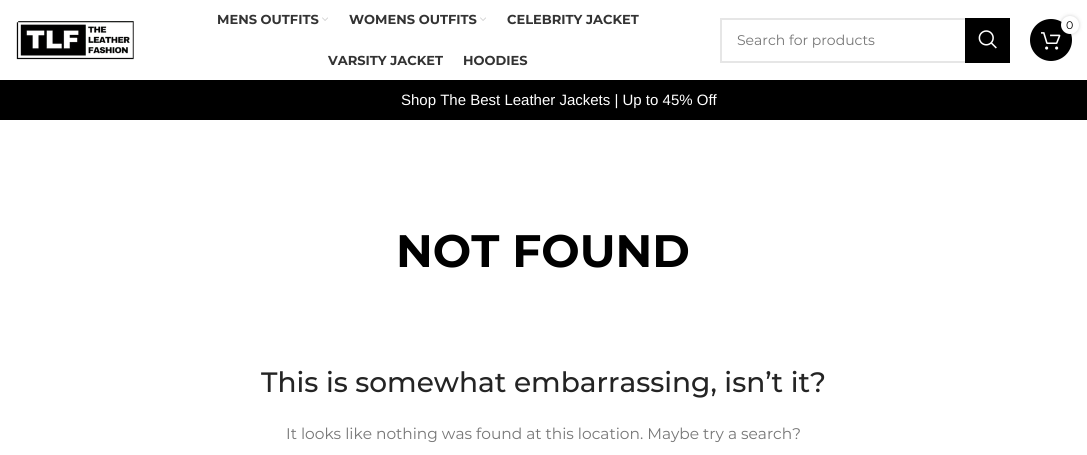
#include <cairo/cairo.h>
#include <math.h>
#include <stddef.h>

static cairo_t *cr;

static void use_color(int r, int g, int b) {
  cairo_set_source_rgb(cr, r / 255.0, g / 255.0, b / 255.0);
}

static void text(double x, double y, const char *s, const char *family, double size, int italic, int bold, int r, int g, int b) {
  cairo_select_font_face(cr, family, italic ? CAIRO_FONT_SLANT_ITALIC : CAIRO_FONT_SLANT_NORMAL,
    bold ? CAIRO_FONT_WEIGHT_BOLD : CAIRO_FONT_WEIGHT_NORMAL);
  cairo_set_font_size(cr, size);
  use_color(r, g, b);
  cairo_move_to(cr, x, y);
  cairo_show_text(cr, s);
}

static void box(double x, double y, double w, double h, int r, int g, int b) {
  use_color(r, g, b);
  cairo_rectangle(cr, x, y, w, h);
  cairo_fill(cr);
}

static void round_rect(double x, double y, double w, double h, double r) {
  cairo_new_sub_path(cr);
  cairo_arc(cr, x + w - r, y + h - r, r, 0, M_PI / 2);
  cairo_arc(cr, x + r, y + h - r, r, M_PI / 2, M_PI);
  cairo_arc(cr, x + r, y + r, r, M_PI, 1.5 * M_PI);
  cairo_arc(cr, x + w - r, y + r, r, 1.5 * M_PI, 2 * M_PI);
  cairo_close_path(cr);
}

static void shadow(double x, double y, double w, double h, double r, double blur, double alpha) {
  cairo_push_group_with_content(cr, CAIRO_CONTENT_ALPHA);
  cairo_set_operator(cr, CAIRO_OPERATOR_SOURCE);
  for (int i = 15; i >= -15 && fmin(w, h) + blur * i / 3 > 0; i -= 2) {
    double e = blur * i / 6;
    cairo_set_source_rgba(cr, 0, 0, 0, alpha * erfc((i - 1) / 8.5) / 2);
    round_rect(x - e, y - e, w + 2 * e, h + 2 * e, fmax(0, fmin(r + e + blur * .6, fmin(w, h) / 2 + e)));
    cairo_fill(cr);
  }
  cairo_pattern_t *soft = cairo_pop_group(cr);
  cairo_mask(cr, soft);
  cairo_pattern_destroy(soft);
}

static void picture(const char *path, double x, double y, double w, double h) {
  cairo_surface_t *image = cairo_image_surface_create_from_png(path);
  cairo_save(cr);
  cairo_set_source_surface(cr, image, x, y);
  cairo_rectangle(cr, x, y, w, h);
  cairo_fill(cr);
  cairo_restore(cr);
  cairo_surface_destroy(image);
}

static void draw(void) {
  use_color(255, 255, 255);
  cairo_paint(cr);
  picture("img_01.png", 16, 21, 118, 39);
  picture("img_02.png", 322, 17, 6, 4);
  picture("img_02.png", 480, 17, 6, 4);
  use_color(0, 0, 0);
  cairo_arc(cr, 1051, 40, 21, 0, 2 * M_PI);
  cairo_fill(cr);
  picture("img_03.png", 1041, 32, 20, 18);
  use_color(0, 0, 0);
  shadow(1061, 16, 18, 18, 9, 2, 0.17);
  use_color(255, 255, 255);
  cairo_arc(cr, 1070, 25, 9, 0, 2 * M_PI);
  cairo_fill(cr);
  cairo_rectangle(cr, 721, 19, 288, 43);
  use_color(230, 230, 230);
  cairo_stroke(cr);
  box(965, 18, 45, 45, 0, 0, 0);
  picture("img_04.png", 978, 30, 19, 19);
  box(0, 80, 1087, 40, 0, 0, 0);
  text(217, 24, "MENS OUTFITS", "Montserrat", 13, 0, 1, 51, 51, 51);
  text(349, 24, "WOMENS OUTFITS", "Montserrat", 13, 0, 1, 51, 51, 51);
  text(507, 24, "CELEBRITY JACKET", "Montserrat", 13, 0, 1, 51, 51, 51);
  text(328, 65, "VARSITY JACKET", "Montserrat", 13, 0, 1, 51, 51, 51);
  text(463, 65, "HOODIES", "Montserrat", 13, 0, 1, 51, 51, 51);
  text(1066, 29, "0", "Montserrat", 11, 0, 0, 0, 0, 0);
  text(737, 45, "Search for products", "Montserrat", 14, 0, 0, 118, 118, 118);
  text(401, 105, "Shop The Best Leather Jackets | Up to 45% Off", "Liberation Sans", 15, 0, 0, 255, 255, 255);
  text(396, 267, "NOT FOUND", "Montserrat", 45.5, 0, 1, 0, 0, 0);
  text(261, 392, "This is somewhat embarrassing, isn’t it?", "Montserrat Medium", 28, 0, 0, 36, 36, 36);
  text(286, 439, "It looks like nothing was found at this location. Maybe try a search?", "Montserrat", 15.4, 0, 0, 118, 118, 118);
}

int main(void) {
  cairo_surface_t *surface = cairo_image_surface_create(CAIRO_FORMAT_RGB24, 1087, 455);
  cr = cairo_create(surface);
  cairo_font_options_t *options = cairo_font_options_create();
  cairo_font_options_set_hint_metrics(options, CAIRO_HINT_METRICS_OFF);
  cairo_font_options_set_hint_style(options, CAIRO_HINT_STYLE_NONE);
  cairo_set_font_options(cr, options);
  cairo_set_miter_limit(cr, 4);
  draw();
  cairo_surface_write_to_png(surface, "out.png");
  cairo_font_options_destroy(options);
  cairo_destroy(cr);
  cairo_surface_destroy(surface);
  return 0;
}
